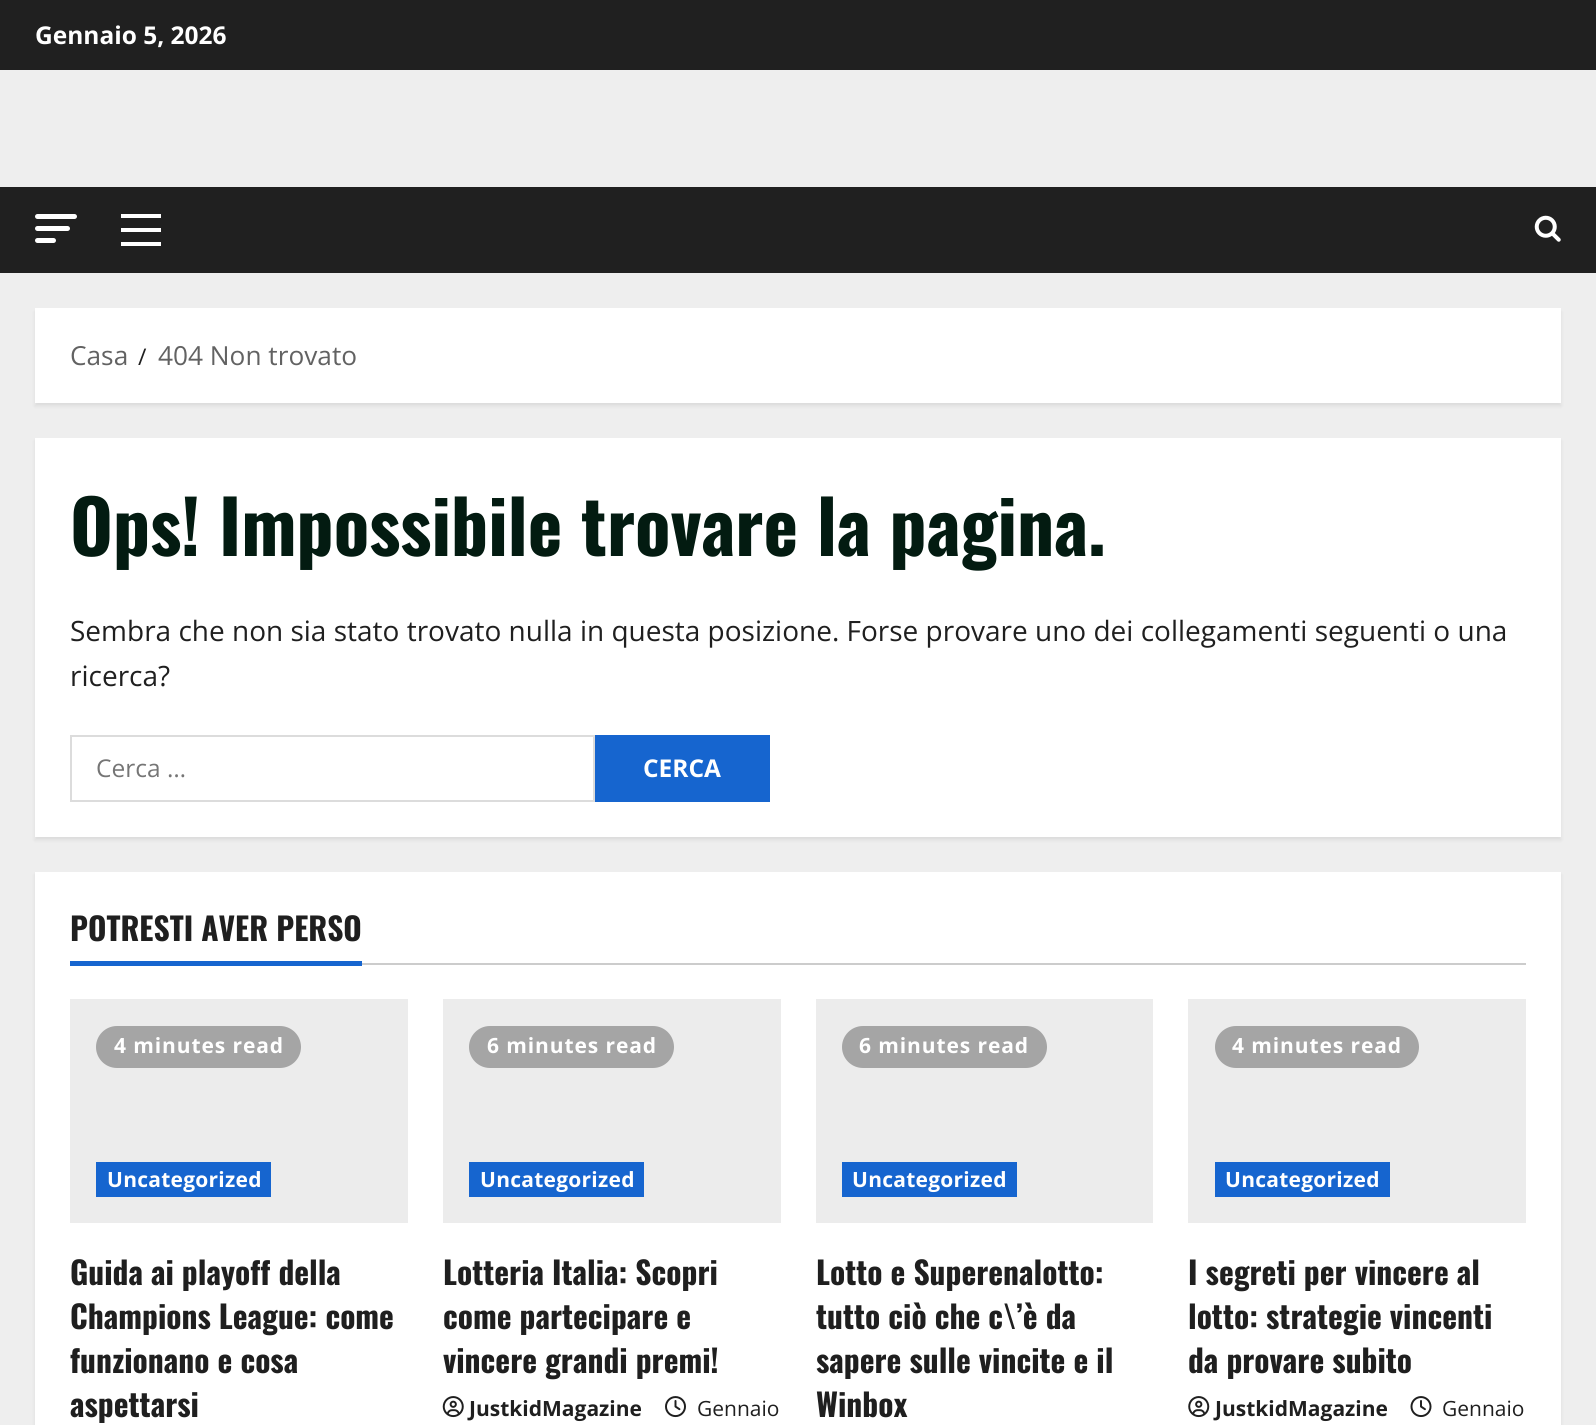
#include <cairo/cairo.h>
#include <math.h>
#include <stddef.h>

static cairo_t *cr;

static void use_color(int r, int g, int b) {
  cairo_set_source_rgb(cr, r / 255.0, g / 255.0, b / 255.0);
}

static void text(double x, double y, const char *s, const char *family, double size, int italic, int bold, int r, int g, int b) {
  cairo_select_font_face(cr, family, italic ? CAIRO_FONT_SLANT_ITALIC : CAIRO_FONT_SLANT_NORMAL,
    bold ? CAIRO_FONT_WEIGHT_BOLD : CAIRO_FONT_WEIGHT_NORMAL);
  cairo_set_font_size(cr, size);
  use_color(r, g, b);
  cairo_move_to(cr, x, y);
  cairo_show_text(cr, s);
}

static void spaced_text(double x, double y, const char *s, double letter, double word) {
  cairo_move_to(cr, x, y);
  while (*s) {
    char ch[5] = {0};
    int n = 0;
    do ch[n++] = *s++; while ((*s & 0xC0) == 0x80);
    cairo_show_text(cr, ch);
    cairo_rel_move_to(cr, letter + word * (*ch == ' '), 0);
  }
}

static void box(double x, double y, double w, double h, int r, int g, int b) {
  use_color(r, g, b);
  cairo_rectangle(cr, x, y, w, h);
  cairo_fill(cr);
}

static void round_rect(double x, double y, double w, double h, double r) {
  cairo_new_sub_path(cr);
  cairo_arc(cr, x + w - r, y + h - r, r, 0, M_PI / 2);
  cairo_arc(cr, x + r, y + h - r, r, M_PI / 2, M_PI);
  cairo_arc(cr, x + r, y + r, r, M_PI, 1.5 * M_PI);
  cairo_arc(cr, x + w - r, y + r, r, 1.5 * M_PI, 2 * M_PI);
  cairo_close_path(cr);
}

static void shadow(double x, double y, double w, double h, double r, double blur, double alpha) {
  cairo_push_group_with_content(cr, CAIRO_CONTENT_ALPHA);
  cairo_set_operator(cr, CAIRO_OPERATOR_SOURCE);
  for (int i = 15; i >= -15 && fmin(w, h) + blur * i / 3 > 0; i -= 2) {
    double e = blur * i / 6;
    cairo_set_source_rgba(cr, 0, 0, 0, alpha * erfc((i - 1) / 8.5) / 2);
    round_rect(x - e, y - e, w + 2 * e, h + 2 * e, fmax(0, fmin(r + e + blur * .6, fmin(w, h) / 2 + e)));
    cairo_fill(cr);
  }
  cairo_pattern_t *soft = cairo_pop_group(cr);
  cairo_mask(cr, soft);
  cairo_pattern_destroy(soft);
}

static void picture(const char *path, double x, double y, double w, double h) {
  cairo_surface_t *image = cairo_image_surface_create_from_png(path);
  cairo_save(cr);
  cairo_set_source_surface(cr, image, x, y);
  cairo_rectangle(cr, x, y, w, h);
  cairo_fill(cr);
  cairo_restore(cr);
  cairo_surface_destroy(image);
}

static void draw(void) {
  use_color(238, 238, 238);
  cairo_paint(cr);
  box(0, 0, 1596, 70, 32, 32, 32);
  box(0, 187, 1596, 86, 32, 32, 32);
  use_color(255, 255, 255);
  round_rect(35, 214, 42, 5, 2.5);
  cairo_fill(cr);
  round_rect(35, 226, 35, 5, 2.5);
  cairo_fill(cr);
  round_rect(35, 238, 21, 5, 2.5);
  cairo_fill(cr);
  box(121, 228, 40, 4, 255, 255, 255);
  box(121, 214, 40, 4, 255, 255, 255);
  box(121, 242, 40, 4, 255, 255, 255);
  picture("img_01.png", 1534, 215, 27, 27);
  use_color(0, 0, 0);
  shadow(35, 312, 1526, 94, 0, 2, 0.08);
  box(35, 308, 1526, 95, 255, 255, 255);
  use_color(0, 0, 0);
  shadow(35, 441, 1526, 399, 0, 2, 0.08);
  box(35, 438, 1526, 399, 255, 255, 255);
  cairo_rectangle(cr, 71, 736, 523, 65);
  use_color(220, 220, 220);
  cairo_stroke(cr);
  box(595, 735, 175, 67, 22, 101, 207);
  use_color(0, 0, 0);
  shadow(35, 875, 1526, 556, 0, 2, 0.08);
  box(35, 872, 1526, 553, 255, 255, 255);
  box(362, 963, 1164, 2, 204, 204, 204);
  box(70, 961, 292, 5, 22, 101, 207);
  box(70, 999, 338, 224, 236, 236, 236);
  use_color(165, 165, 165);
  round_rect(96, 1026, 205, 42, 21);
  cairo_fill(cr);
  box(96, 1162, 175, 35, 22, 101, 207);
  box(443, 999, 338, 224, 236, 236, 236);
  use_color(165, 165, 165);
  round_rect(469, 1026, 205, 42, 21);
  cairo_fill(cr);
  box(469, 1162, 175, 35, 22, 101, 207);
  picture("img_02.png", 442, 1396, 22, 22);
  picture("img_03.png", 665, 1396, 21, 22);
  box(816, 999, 337, 224, 236, 236, 236);
  use_color(165, 165, 165);
  round_rect(842, 1026, 205, 42, 21);
  cairo_fill(cr);
  box(842, 1162, 175, 35, 22, 101, 207);
  box(1188, 999, 338, 224, 236, 236, 236);
  use_color(165, 165, 165);
  round_rect(1215, 1026, 204, 42, 21);
  cairo_fill(cr);
  box(1215, 1162, 175, 35, 22, 101, 207);
  picture("img_04.png", 1188, 1396, 22, 22);
  picture("img_05.png", 1410, 1396, 22, 21);
  text(35, 44, "Gennaio 5, 2026", "Open Sans", 24.5, 0, 1, 255, 255, 255);
  text(70, 365, "Casa", "Open Sans", 26.25, 0, 0, 98, 98, 98);
  text(138, 365, "/", "Open Sans", 23, 0, 0, 31, 31, 31);
  text(158, 365, "404 Non trovato", "Open Sans", 26.25, 0, 0, 98, 98, 98);
  text(70, 556, "Ops! Impossibile trovare la pagina.", "Oswald", 73.5, 0, 1, 3, 27, 17);
  text(70, 641, "Sembra che non sia stato trovato nulla in questa posizione. Forse provare uno dei collegamenti seguenti o una", "Open Sans", 28, 0, 0, 31, 31, 31);
  text(70, 686, "ricerca?", "Open Sans", 28, 0, 0, 31, 31, 31);
  text(96, 777, "Cerca …", "Open Sans", 24.5, 0, 0, 117, 117, 117);
  text(643, 777, "CERCA", "Open Sans", 24.5, 0, 1, 255, 255, 255);
  text(70, 941, "POTRESTI AVER PERSO", "Oswald", 31.5, 0, 1, 31, 31, 31);
  cairo_select_font_face(cr, "Open Sans", CAIRO_FONT_SLANT_NORMAL, CAIRO_FONT_WEIGHT_BOLD);
  cairo_set_font_size(cr, 21);
  use_color(255, 255, 255);
  spaced_text(114, 1053, "4 minutes read", 0.9, 0);
  spaced_text(107, 1187, "Uncategorized", 0.25, 0);
  text(70, 1285, "Guida ai playoff della", "Oswald", 31.5, 0, 1, 31, 31, 31);
  text(70, 1329, "Champions League: come", "Oswald", 31.5, 0, 1, 31, 31, 31);
  text(70, 1373, "funzionano e cosa", "Oswald", 31.5, 0, 1, 31, 31, 31);
  text(70, 1417, "aspettarsi", "Oswald", 31.5, 0, 1, 31, 31, 31);
  cairo_select_font_face(cr, "Open Sans", CAIRO_FONT_SLANT_NORMAL, CAIRO_FONT_WEIGHT_BOLD);
  cairo_set_font_size(cr, 21);
  use_color(255, 255, 255);
  spaced_text(487, 1053, "6 minutes read", 0.9, 0);
  spaced_text(480, 1187, "Uncategorized", 0.25, 0);
  text(443, 1285, "Lotteria Italia: Scopri", "Oswald", 31.5, 0, 1, 31, 31, 31);
  text(443, 1329, "come partecipare e", "Oswald", 31.5, 0, 1, 31, 31, 31);
  text(443, 1373, "vincere grandi premi!", "Oswald", 31.5, 0, 1, 31, 31, 31);
  text(469, 1416, "JustkidMagazine", "Open Sans", 21, 0, 1, 31, 31, 31);
  text(697, 1416, "Gennaio", "Open Sans", 21, 0, 0, 31, 31, 31);
  cairo_select_font_face(cr, "Open Sans", CAIRO_FONT_SLANT_NORMAL, CAIRO_FONT_WEIGHT_BOLD);
  use_color(255, 255, 255);
  spaced_text(859, 1053, "6 minutes read", 0.9, 0);
  spaced_text(852, 1187, "Uncategorized", 0.25, 0);
  text(816, 1285, "Lotto e Superenalotto:", "Oswald", 31.5, 0, 1, 31, 31, 31);
  text(816, 1329, "tutto ciò che c\\’è da", "Oswald", 31.5, 0, 1, 31, 31, 31);
  text(816, 1373, "sapere sulle vincite e il", "Oswald", 31.5, 0, 1, 31, 31, 31);
  text(816, 1417, "Winbox", "Oswald", 31.5, 0, 1, 31, 31, 31);
  cairo_select_font_face(cr, "Open Sans", CAIRO_FONT_SLANT_NORMAL, CAIRO_FONT_WEIGHT_BOLD);
  cairo_set_font_size(cr, 21);
  use_color(255, 255, 255);
  spaced_text(1232, 1053, "4 minutes read", 0.9, 0);
  spaced_text(1225, 1187, "Uncategorized", 0.25, 0);
  text(1188, 1285, "I segreti per vincere al", "Oswald", 31.5, 0, 1, 31, 31, 31);
  text(1188, 1329, "lotto: strategie vincenti", "Oswald", 31.5, 0, 1, 31, 31, 31);
  text(1188, 1373, "da provare subito", "Oswald", 31.5, 0, 1, 31, 31, 31);
  text(1215, 1416, "JustkidMagazine", "Open Sans", 21, 0, 1, 31, 31, 31);
  text(1442, 1416, "Gennaio", "Open Sans", 21, 0, 0, 31, 31, 31);
}

int main(void) {
  cairo_surface_t *surface = cairo_image_surface_create(CAIRO_FORMAT_RGB24, 1596, 1425);
  cr = cairo_create(surface);
  cairo_font_options_t *options = cairo_font_options_create();
  cairo_font_options_set_hint_metrics(options, CAIRO_HINT_METRICS_OFF);
  cairo_font_options_set_hint_style(options, CAIRO_HINT_STYLE_NONE);
  cairo_set_font_options(cr, options);
  cairo_set_miter_limit(cr, 4);
  draw();
  cairo_surface_write_to_png(surface, "out.png");
  cairo_font_options_destroy(options);
  cairo_destroy(cr);
  cairo_surface_destroy(surface);
  return 0;
}
